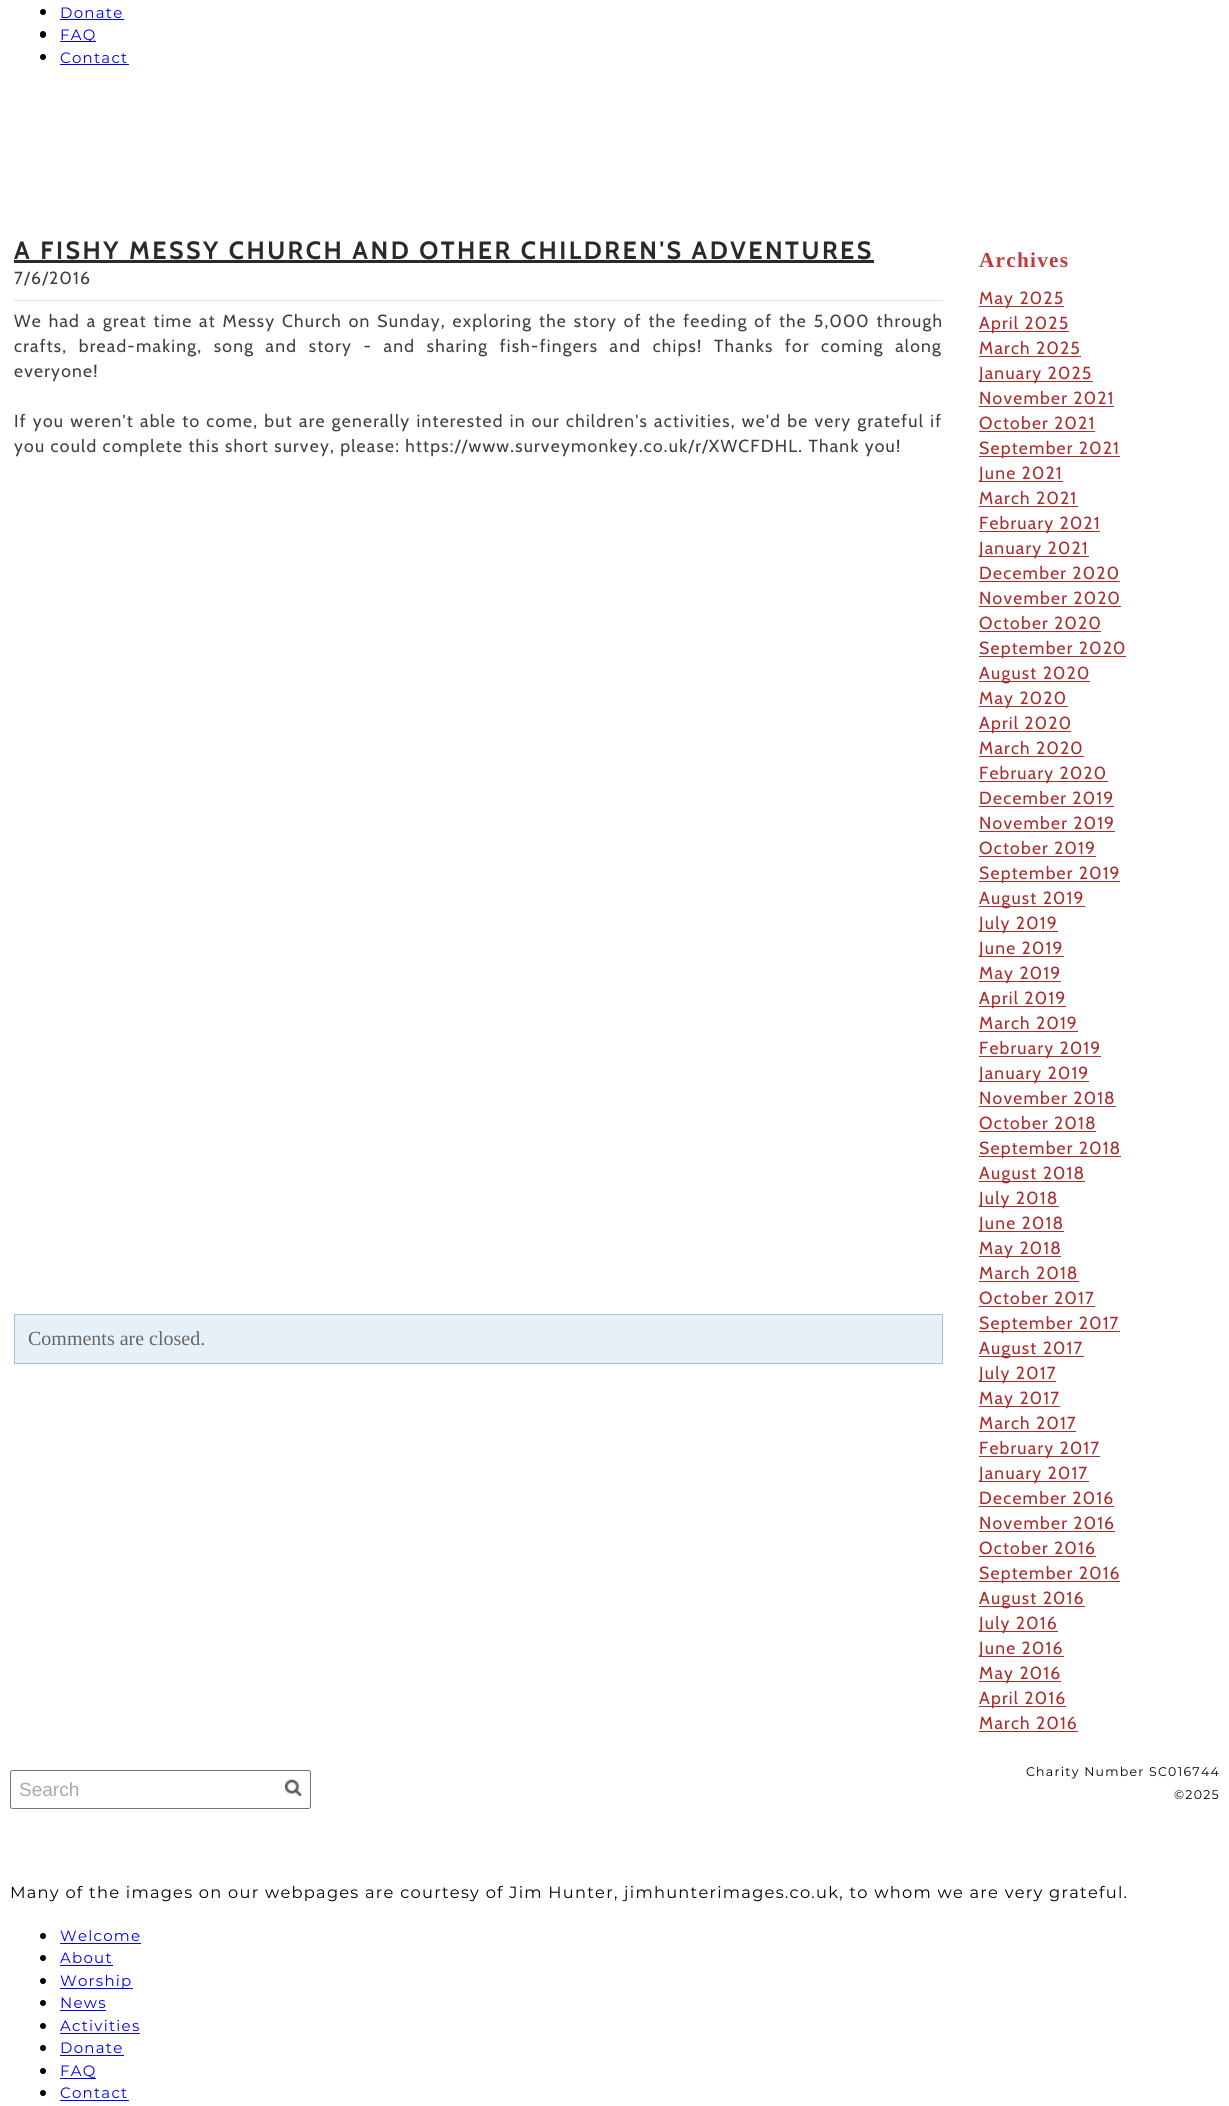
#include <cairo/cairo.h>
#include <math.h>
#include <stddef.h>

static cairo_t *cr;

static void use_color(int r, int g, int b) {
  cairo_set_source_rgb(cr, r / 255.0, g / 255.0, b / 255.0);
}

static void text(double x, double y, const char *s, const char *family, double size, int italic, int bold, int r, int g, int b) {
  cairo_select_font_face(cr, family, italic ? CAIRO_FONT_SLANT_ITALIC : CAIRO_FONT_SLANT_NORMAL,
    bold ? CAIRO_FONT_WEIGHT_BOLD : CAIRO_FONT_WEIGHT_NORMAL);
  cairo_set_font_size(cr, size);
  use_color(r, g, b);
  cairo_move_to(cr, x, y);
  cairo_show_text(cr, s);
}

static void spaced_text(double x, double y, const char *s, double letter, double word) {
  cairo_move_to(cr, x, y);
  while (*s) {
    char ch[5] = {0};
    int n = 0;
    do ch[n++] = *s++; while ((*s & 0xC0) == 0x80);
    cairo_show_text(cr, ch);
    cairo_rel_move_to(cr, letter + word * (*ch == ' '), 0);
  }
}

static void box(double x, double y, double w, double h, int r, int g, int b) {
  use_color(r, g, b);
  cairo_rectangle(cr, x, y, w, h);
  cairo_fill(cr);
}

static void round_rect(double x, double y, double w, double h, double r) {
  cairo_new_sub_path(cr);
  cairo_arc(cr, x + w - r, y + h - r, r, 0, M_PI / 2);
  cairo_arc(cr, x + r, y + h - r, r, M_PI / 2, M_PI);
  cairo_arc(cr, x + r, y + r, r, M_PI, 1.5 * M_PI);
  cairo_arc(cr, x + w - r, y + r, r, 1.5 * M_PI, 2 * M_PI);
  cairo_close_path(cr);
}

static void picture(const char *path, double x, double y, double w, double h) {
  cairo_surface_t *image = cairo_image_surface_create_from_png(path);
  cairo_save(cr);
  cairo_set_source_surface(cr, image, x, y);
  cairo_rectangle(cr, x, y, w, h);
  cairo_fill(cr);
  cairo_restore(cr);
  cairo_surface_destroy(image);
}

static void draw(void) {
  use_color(255, 255, 255);
  cairo_paint(cr);
  use_color(0, 0, 0);
  cairo_arc(cr, 43, 12, 3, 0, 2 * M_PI);
  cairo_fill(cr);
  box(60, 19, 64, 1, 0, 0, 238);
  use_color(0, 0, 0);
  round_rect(40, 31, 6, 7, 3);
  cairo_fill(cr);
  box(60, 41, 36, 1, 0, 0, 238);
  use_color(0, 0, 0);
  cairo_arc(cr, 43, 57, 3, 0, 2 * M_PI);
  cairo_fill(cr);
  box(60, 64, 69, 1, 0, 0, 238);
  box(14, 260, 860, 3, 42, 42, 42);
  box(14, 300, 929, 1, 221, 221, 221);
  use_color(230, 240, 249);
  cairo_rectangle(cr, 14.5, 1314.5, 928, 49);
  cairo_fill_preserve(cr);
  use_color(167, 195, 217);
  cairo_set_line_width(cr, 1);
  cairo_stroke(cr);
  box(979, 306, 85, 1, 168, 46, 46);
  box(979, 331, 90, 1, 168, 46, 46);
  box(979, 356, 102, 1, 168, 46, 46);
  box(979, 381, 114, 1, 168, 46, 46);
  box(979, 406, 135, 1, 168, 46, 46);
  box(979, 431, 116, 1, 168, 46, 46);
  box(979, 456, 141, 1, 168, 46, 46);
  box(979, 481, 84, 1, 168, 46, 46);
  box(979, 506, 99, 1, 168, 46, 46);
  box(979, 531, 121, 1, 168, 46, 46);
  box(979, 556, 110, 1, 168, 46, 46);
  box(979, 581, 141, 1, 168, 46, 46);
  box(979, 606, 142, 1, 168, 46, 46);
  box(979, 631, 122, 1, 168, 46, 46);
  box(979, 656, 147, 1, 168, 46, 46);
  box(979, 681, 111, 1, 168, 46, 46);
  box(979, 706, 89, 1, 168, 46, 46);
  box(979, 731, 92, 1, 168, 46, 46);
  box(979, 756, 105, 1, 168, 46, 46);
  box(979, 781, 129, 1, 168, 46, 46);
  box(979, 806, 135, 1, 168, 46, 46);
  box(979, 831, 136, 1, 168, 46, 46);
  box(979, 856, 117, 1, 168, 46, 46);
  box(979, 881, 141, 1, 168, 46, 46);
  box(979, 906, 106, 1, 168, 46, 46);
  box(979, 931, 79, 1, 168, 46, 46);
  box(979, 956, 85, 1, 168, 46, 46);
  box(979, 981, 82, 1, 168, 46, 46);
  box(979, 1006, 87, 1, 168, 46, 46);
  box(979, 1031, 99, 1, 168, 46, 46);
  box(979, 1056, 122, 1, 168, 46, 46);
  box(979, 1081, 110, 1, 168, 46, 46);
  box(979, 1106, 137, 1, 168, 46, 46);
  box(979, 1131, 117, 1, 168, 46, 46);
  box(979, 1156, 142, 1, 168, 46, 46);
  box(979, 1181, 106, 1, 168, 46, 46);
  box(979, 1206, 80, 1, 168, 46, 46);
  box(979, 1231, 85, 1, 168, 46, 46);
  box(979, 1256, 82, 1, 168, 46, 46);
  box(979, 1281, 100, 1, 168, 46, 46);
  box(979, 1306, 116, 1, 168, 46, 46);
  box(979, 1331, 141, 1, 168, 46, 46);
  box(979, 1356, 105, 1, 168, 46, 46);
  box(979, 1381, 77, 1, 168, 46, 46);
  box(979, 1406, 81, 1, 168, 46, 46);
  box(979, 1431, 97, 1, 168, 46, 46);
  box(979, 1456, 121, 1, 168, 46, 46);
  box(979, 1481, 110, 1, 168, 46, 46);
  box(979, 1506, 135, 1, 168, 46, 46);
  box(979, 1531, 136, 1, 168, 46, 46);
  box(979, 1556, 117, 1, 168, 46, 46);
  box(979, 1581, 141, 1, 168, 46, 46);
  box(979, 1606, 106, 1, 168, 46, 46);
  box(979, 1631, 79, 1, 168, 46, 46);
  box(979, 1656, 85, 1, 168, 46, 46);
  box(979, 1681, 82, 1, 168, 46, 46);
  box(979, 1706, 87, 1, 168, 46, 46);
  box(979, 1731, 99, 1, 168, 46, 46);
  round_rect(10.5, 1770.5, 300, 38, 2);
  use_color(118, 118, 118);
  cairo_stroke(cr);
  picture("img_01.png", 285, 1779, 17, 17);
  use_color(0, 0, 0);
  cairo_arc(cr, 43, 1936, 3, 0, 2 * M_PI);
  cairo_fill(cr);
  box(60, 1943, 81, 1, 0, 0, 238);
  use_color(0, 0, 0);
  cairo_arc(cr, 43, 1958, 3, 0, 2 * M_PI);
  cairo_fill(cr);
  box(60, 1965, 53, 1, 0, 0, 238);
  use_color(0, 0, 0);
  cairo_arc(cr, 43, 1981, 3, 0, 2 * M_PI);
  cairo_fill(cr);
  box(60, 1988, 73, 1, 0, 0, 238);
  use_color(0, 0, 0);
  cairo_arc(cr, 43, 2003, 3, 0, 2 * M_PI);
  cairo_fill(cr);
  box(60, 2010, 46, 1, 0, 0, 238);
  use_color(0, 0, 0);
  cairo_arc(cr, 43, 2026, 3, 0, 2 * M_PI);
  cairo_fill(cr);
  box(60, 2033, 80, 1, 0, 0, 238);
  use_color(0, 0, 0);
  cairo_arc(cr, 43, 2048, 3, 0, 2 * M_PI);
  cairo_fill(cr);
  box(60, 2055, 64, 1, 0, 0, 238);
  use_color(0, 0, 0);
  cairo_arc(cr, 43, 2071, 3, 0, 2 * M_PI);
  cairo_fill(cr);
  box(60, 2078, 36, 1, 0, 0, 238);
  use_color(0, 0, 0);
  cairo_arc(cr, 43, 2093, 3, 0, 2 * M_PI);
  cairo_fill(cr);
  box(60, 2100, 69, 1, 0, 0, 238);
  cairo_select_font_face(cr, "Montserrat", CAIRO_FONT_SLANT_NORMAL, CAIRO_FONT_WEIGHT_NORMAL);
  cairo_set_font_size(cr, 15);
  spaced_text(60, 18, "Donate", 1.25, 0);
  spaced_text(60, 40, "FAQ", 1.25, 0);
  spaced_text(60, 63, "Contact", 1.25, 0);
  cairo_select_font_face(cr, "Cabin", CAIRO_FONT_SLANT_NORMAL, CAIRO_FONT_WEIGHT_BOLD);
  cairo_set_font_size(cr, 25);
  use_color(42, 42, 42);
  spaced_text(14, 259, "A FISHY MESSY CHURCH AND OTHER CHILDREN'S ADVENTURES", 2.5, 0);
  cairo_select_font_face(cr, "Cabin", CAIRO_FONT_SLANT_NORMAL, CAIRO_FONT_WEIGHT_NORMAL);
  cairo_set_font_size(cr, 17.5);
  use_color(63, 63, 63);
  spaced_text(14, 284, "7/6/2016", 1.25, 0);
  spaced_text(14, 327, "We had a great time at Messy Church on Sunday, exploring the story of the feeding of the 5,000 through", 1.25, 1.5);
  spaced_text(14, 352, "crafts, bread-making, song and story - and sharing fish-fingers and chips! Thanks for coming along", 1.25, 6.25);
  spaced_text(14, 377, "everyone!", 1.25, 0);
  spaced_text(14, 427, "If you weren't able to come, but are generally interested in our children's activities, we'd be very grateful if", 1.25, 0.9);
  spaced_text(14, 452, "you could complete this short survey, please: https://www.surveymonkey.co.uk/r/XWCFDHL. Thank you!", 1.25, 0);
  text(28, 1345, "Comments are closed.", "Liberation Serif", 20, 0, 0, 105, 101, 98);
  cairo_select_font_face(cr, "Liberation Serif", CAIRO_FONT_SLANT_NORMAL, CAIRO_FONT_WEIGHT_BOLD);
  cairo_set_font_size(cr, 21.25);
  use_color(194, 59, 59);
  spaced_text(979, 267, "Archives", 1.25, 0);
  cairo_select_font_face(cr, "Cabin", CAIRO_FONT_SLANT_NORMAL, CAIRO_FONT_WEIGHT_NORMAL);
  cairo_set_font_size(cr, 17.5);
  use_color(168, 46, 46);
  spaced_text(979, 304, "May 2025", 1.25, 0);
  spaced_text(979, 329, "April 2025", 1.25, 0);
  spaced_text(979, 354, "March 2025", 1.25, 0);
  spaced_text(979, 379, "January 2025", 1.25, 0);
  spaced_text(979, 404, "November 2021", 1.25, 0);
  spaced_text(979, 429, "October 2021", 1.25, 0);
  spaced_text(979, 454, "September 2021", 1.25, 0);
  spaced_text(979, 479, "June 2021", 1.25, 0);
  spaced_text(979, 504, "March 2021", 1.25, 0);
  spaced_text(979, 529, "February 2021", 1.25, 0);
  spaced_text(979, 554, "January 2021", 1.25, 0);
  spaced_text(979, 579, "December 2020", 1.25, 0);
  spaced_text(979, 604, "November 2020", 1.25, 0);
  spaced_text(979, 629, "October 2020", 1.25, 0);
  spaced_text(979, 654, "September 2020", 1.25, 0);
  spaced_text(979, 679, "August 2020", 1.25, 0);
  spaced_text(979, 704, "May 2020", 1.25, 0);
  spaced_text(979, 729, "April 2020", 1.25, 0);
  spaced_text(979, 754, "March 2020", 1.25, 0);
  spaced_text(979, 779, "February 2020", 1.25, 0);
  spaced_text(979, 804, "December 2019", 1.25, 0);
  spaced_text(979, 829, "November 2019", 1.25, 0);
  spaced_text(979, 854, "October 2019", 1.25, 0);
  spaced_text(979, 879, "September 2019", 1.25, 0);
  spaced_text(979, 904, "August 2019", 1.25, 0);
  spaced_text(979, 929, "July 2019", 1.25, 0);
  spaced_text(979, 954, "June 2019", 1.25, 0);
  spaced_text(979, 979, "May 2019", 1.25, 0);
  spaced_text(979, 1004, "April 2019", 1.25, 0);
  spaced_text(979, 1029, "March 2019", 1.25, 0);
  spaced_text(979, 1054, "February 2019", 1.25, 0);
  spaced_text(979, 1079, "January 2019", 1.25, 0);
  spaced_text(979, 1104, "November 2018", 1.25, 0);
  spaced_text(979, 1129, "October 2018", 1.25, 0);
  spaced_text(979, 1154, "September 2018", 1.25, 0);
  spaced_text(979, 1179, "August 2018", 1.25, 0);
  spaced_text(979, 1204, "July 2018", 1.25, 0);
  spaced_text(979, 1229, "June 2018", 1.25, 0);
  spaced_text(979, 1254, "May 2018", 1.25, 0);
  spaced_text(979, 1279, "March 2018", 1.25, 0);
  spaced_text(979, 1304, "October 2017", 1.25, 0);
  spaced_text(979, 1329, "September 2017", 1.25, 0);
  spaced_text(979, 1354, "August 2017", 1.25, 0);
  spaced_text(979, 1379, "July 2017", 1.25, 0);
  spaced_text(979, 1404, "May 2017", 1.25, 0);
  spaced_text(979, 1429, "March 2017", 1.25, 0);
  spaced_text(979, 1454, "February 2017", 1.25, 0);
  spaced_text(979, 1479, "January 2017", 1.25, 0);
  spaced_text(979, 1504, "December 2016", 1.25, 0);
  spaced_text(979, 1529, "November 2016", 1.25, 0);
  spaced_text(979, 1554, "October 2016", 1.25, 0);
  spaced_text(979, 1579, "September 2016", 1.25, 0);
  spaced_text(979, 1604, "August 2016", 1.25, 0);
  spaced_text(979, 1629, "July 2016", 1.25, 0);
  spaced_text(979, 1654, "June 2016", 1.25, 0);
  spaced_text(979, 1679, "May 2016", 1.25, 0);
  spaced_text(979, 1704, "April 2016", 1.25, 0);
  spaced_text(979, 1729, "March 2016", 1.25, 0);
  text(19, 1796, "Search", "Liberation Sans", 19, 0, 0, 169, 169, 169);
  cairo_select_font_face(cr, "Montserrat", CAIRO_FONT_SLANT_NORMAL, CAIRO_FONT_WEIGHT_NORMAL);
  cairo_set_font_size(cr, 12.5);
  use_color(0, 0, 0);
  spaced_text(1026, 1776, "Charity Number SC016744", 1.25, 0);
  spaced_text(1174, 1799, "©2025", 1.25, 0);
  cairo_set_font_size(cr, 16.25);
  spaced_text(10, 1898, "Many of the images on our webpages are courtesy of Jim Hunter, jimhunterimages.co.uk, to whom we are very grateful.", 1.25, 0);
  cairo_set_font_size(cr, 15);
  use_color(0, 0, 238);
  spaced_text(60, 1941, "Welcome", 1.25, 0);
  spaced_text(60, 1963, "About", 1.25, 0);
  spaced_text(60, 1986, "Worship", 1.25, 0);
  spaced_text(60, 2008, "News", 1.25, 0);
  spaced_text(60, 2031, "Activities", 1.25, 0);
  spaced_text(60, 2053, "Donate", 1.25, 0);
  spaced_text(60, 2076, "FAQ", 1.25, 0);
  spaced_text(60, 2098, "Contact", 1.25, 0);
}

int main(void) {
  cairo_surface_t *surface = cairo_image_surface_create(CAIRO_FORMAT_RGB24, 1229, 2106);
  cr = cairo_create(surface);
  cairo_font_options_t *options = cairo_font_options_create();
  cairo_font_options_set_hint_metrics(options, CAIRO_HINT_METRICS_OFF);
  cairo_font_options_set_hint_style(options, CAIRO_HINT_STYLE_NONE);
  cairo_set_font_options(cr, options);
  cairo_set_miter_limit(cr, 4);
  draw();
  cairo_surface_write_to_png(surface, "out.png");
  cairo_font_options_destroy(options);
  cairo_destroy(cr);
  cairo_surface_destroy(surface);
  return 0;
}
